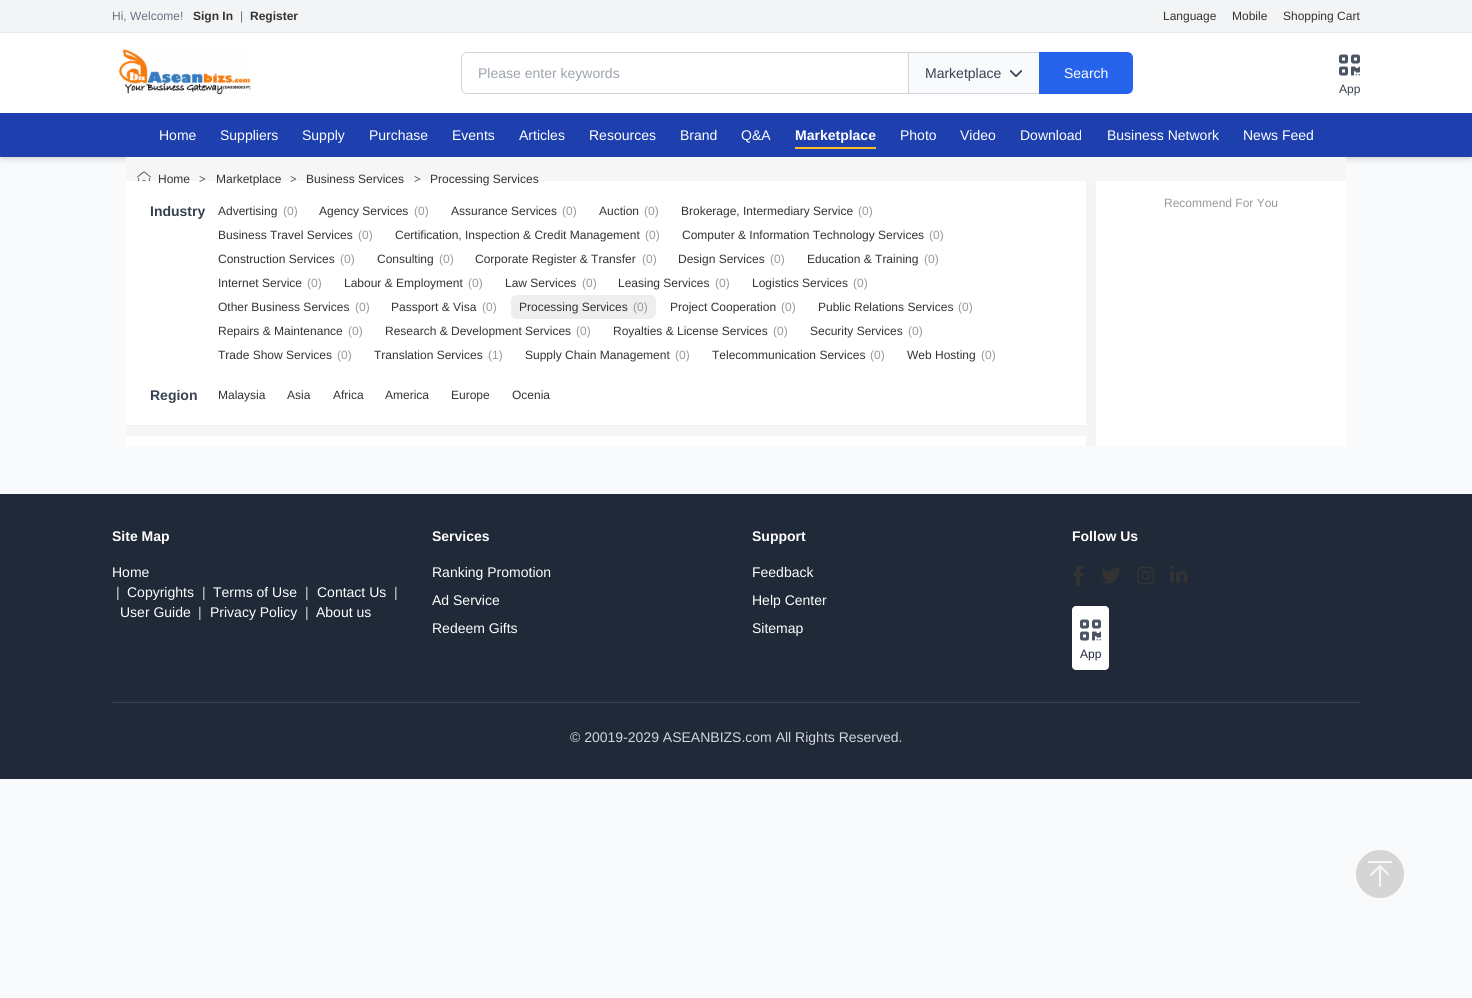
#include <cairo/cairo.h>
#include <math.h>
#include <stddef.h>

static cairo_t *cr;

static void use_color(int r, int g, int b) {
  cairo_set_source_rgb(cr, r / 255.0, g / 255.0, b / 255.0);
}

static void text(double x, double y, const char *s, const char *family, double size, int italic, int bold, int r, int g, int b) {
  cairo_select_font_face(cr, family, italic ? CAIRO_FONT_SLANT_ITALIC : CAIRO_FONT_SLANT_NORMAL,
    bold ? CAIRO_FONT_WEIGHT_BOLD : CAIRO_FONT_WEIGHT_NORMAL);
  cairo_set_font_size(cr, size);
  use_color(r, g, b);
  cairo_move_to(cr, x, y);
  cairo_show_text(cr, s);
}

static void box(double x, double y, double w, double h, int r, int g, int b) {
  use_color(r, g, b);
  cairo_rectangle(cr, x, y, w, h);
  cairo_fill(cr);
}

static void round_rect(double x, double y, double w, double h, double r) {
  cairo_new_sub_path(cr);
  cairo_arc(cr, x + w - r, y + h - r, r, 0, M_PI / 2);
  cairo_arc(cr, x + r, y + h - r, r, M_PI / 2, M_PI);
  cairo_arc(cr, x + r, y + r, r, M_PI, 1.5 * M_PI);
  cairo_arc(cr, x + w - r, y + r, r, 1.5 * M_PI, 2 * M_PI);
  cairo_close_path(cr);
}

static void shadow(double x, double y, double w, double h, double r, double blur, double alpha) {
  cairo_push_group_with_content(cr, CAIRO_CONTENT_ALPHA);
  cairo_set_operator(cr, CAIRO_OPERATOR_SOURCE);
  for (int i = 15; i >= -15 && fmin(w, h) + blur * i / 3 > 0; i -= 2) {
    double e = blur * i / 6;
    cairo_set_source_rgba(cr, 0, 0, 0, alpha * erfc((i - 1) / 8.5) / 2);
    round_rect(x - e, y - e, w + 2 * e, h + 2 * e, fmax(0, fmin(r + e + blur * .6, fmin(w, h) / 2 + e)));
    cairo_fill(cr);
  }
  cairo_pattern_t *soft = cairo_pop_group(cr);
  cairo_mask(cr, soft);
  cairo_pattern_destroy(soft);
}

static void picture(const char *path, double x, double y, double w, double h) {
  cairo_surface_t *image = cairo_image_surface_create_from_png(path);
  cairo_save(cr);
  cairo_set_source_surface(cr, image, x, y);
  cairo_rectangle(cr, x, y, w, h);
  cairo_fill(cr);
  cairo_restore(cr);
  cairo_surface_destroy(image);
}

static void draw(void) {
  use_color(249, 250, 251);
  cairo_paint(cr);
  box(0, 0, 1472, 32, 243, 244, 246);
  box(0, 32, 1472, 1, 229, 231, 235);
  use_color(0, 0, 0);
  shadow(2, 117, 1468, 40, 0, 2, 0.1);
  shadow(1, 118, 1470, 42, 0, 3, 0.1);
  box(0, 113, 1472, 44, 30, 64, 175);
  use_color(0, 0, 0);
  shadow(0, 34, 1472, 80, 0, 1, 0.05);
  box(0, 33, 1472, 80, 255, 255, 255);
  picture("img_01.png", 119, 49, 132, 46);
  cairo_new_path(cr);
  cairo_move_to(cr, 467, 52.5);
  cairo_line_to(cr, 908.5, 52.5);
  cairo_line_to(cr, 908.5, 93.5);
  cairo_line_to(cr, 467, 93.5);
  cairo_curve_to(cr, 464, 93.5, 461.5, 91, 461.5, 88);
  cairo_line_to(cr, 461.5, 58);
  cairo_curve_to(cr, 461.5, 55, 464, 52.5, 467, 52.5);
  cairo_close_path(cr);
  use_color(209, 213, 219);
  cairo_set_line_width(cr, 1);
  cairo_stroke(cr);
  use_color(249, 250, 251);
  cairo_rectangle(cr, 908.5, 52.5, 131, 41);
  cairo_fill_preserve(cr);
  use_color(209, 213, 219);
  cairo_stroke(cr);
  picture("img_02.png", 1010, 70, 12, 7);
  use_color(37, 99, 235);
  cairo_new_path(cr);
  cairo_move_to(cr, 1039, 52);
  cairo_line_to(cr, 1127, 52);
  cairo_curve_to(cr, 1130.5, 52, 1133, 54.5, 1133, 58);
  cairo_line_to(cr, 1133, 88);
  cairo_curve_to(cr, 1133, 91.5, 1130.5, 94, 1127, 94);
  cairo_line_to(cr, 1039, 94);
  cairo_close_path(cr);
  cairo_fill(cr);
  picture("img_03.png", 1339, 54, 21, 22);
  box(795, 147, 81, 2, 251, 191, 36);
  box(126, 157, 1220, 24, 246, 246, 246);
  picture("img_04.png", 137, 171, 14, 10);
  box(126, 181, 1220, 265, 255, 255, 255);
  box(1086, 181, 10, 265, 245, 245, 245);
  box(126, 425, 960, 1, 242, 242, 242);
  use_color(238, 238, 238);
  round_rect(511, 295, 145, 24, 6);
  cairo_fill(cr);
  box(126, 426, 960, 10, 246, 246, 246);
  box(0, 494, 1472, 285, 31, 41, 55);
  picture("img_05.png", 1073, 565, 11, 21);
  picture("img_06.png", 1102, 567, 19, 17);
  picture("img_07.png", 1137, 566, 18, 19);
  picture("img_08.png", 1170, 565, 18, 18);
  use_color(255, 255, 255);
  round_rect(1072, 606, 37, 64, 4);
  cairo_fill(cr);
  picture("img_03.png", 1080, 619, 21, 22);
  box(112, 702, 1248, 1, 55, 65, 81);
  use_color(213, 213, 213);
  cairo_arc(cr, 1380, 874, 24, 0, 2 * M_PI);
  cairo_fill(cr);
  picture("img_09.png", 1368, 861, 24, 26);
  text(112, 20, "Hi, Welcome!", "Liberation Sans", 12, 0, 0, 107, 114, 128);
  text(193, 20, "Sign In", "Liberation Sans", 12, 0, 1, 51, 51, 51);
  text(240, 20, "|", "Liberation Sans", 12, 0, 0, 107, 114, 128);
  text(250, 20, "Register", "Liberation Sans", 12, 0, 1, 51, 51, 51);
  text(1163, 20, "Language", "Liberation Sans", 12, 0, 0, 51, 51, 51);
  text(1232, 20, "Mobile", "Liberation Sans", 12, 0, 0, 51, 51, 51);
  text(1283, 20, "Shopping Cart", "Liberation Sans", 12, 0, 0, 51, 51, 51);
  text(478, 78, "Please enter keywords", "Liberation Sans", 14, 0, 0, 156, 163, 175);
  text(925, 78, "Marketplace", "Liberation Sans", 14, 0, 0, 55, 65, 81);
  text(1064, 78, "Search", "Liberation Sans", 14, 0, 0, 255, 255, 255);
  text(1339, 93, "App", "Liberation Sans", 12, 0, 0, 55, 65, 81);
  text(159, 140, "Home", "Liberation Sans", 14, 0, 0, 255, 255, 255);
  text(220, 140, "Suppliers", "Liberation Sans", 14, 0, 0, 255, 255, 255);
  text(302, 140, "Supply", "Liberation Sans", 14, 0, 0, 255, 255, 255);
  text(369, 140, "Purchase", "Liberation Sans", 14, 0, 0, 255, 255, 255);
  text(452, 140, "Events", "Liberation Sans", 14, 0, 0, 255, 255, 255);
  text(519, 140, "Articles", "Liberation Sans", 14, 0, 0, 255, 255, 255);
  text(589, 140, "Resources", "Liberation Sans", 14, 0, 0, 255, 255, 255);
  text(680, 140, "Brand", "Liberation Sans", 14, 0, 0, 255, 255, 255);
  text(741, 140, "Q&A", "Liberation Sans", 14, 0, 0, 255, 255, 255);
  text(795, 140, "Marketplace", "Liberation Sans", 14, 0, 1, 255, 255, 255);
  text(900, 140, "Photo", "Liberation Sans", 14, 0, 0, 255, 255, 255);
  text(960, 140, "Video", "Liberation Sans", 14, 0, 0, 255, 255, 255);
  text(1020, 140, "Download", "Liberation Sans", 14, 0, 0, 255, 255, 255);
  text(1107, 140, "Business Network", "Liberation Sans", 14, 0, 0, 255, 255, 255);
  text(1243, 140, "News Feed", "Liberation Sans", 14, 0, 0, 255, 255, 255);
  text(158, 183, "Home", "Liberation Sans", 12, 0, 0, 51, 51, 51);
  text(199, 183, ">", "Liberation Serif", 12, 0, 1, 68, 68, 68);
  text(216, 183, "Marketplace", "Liberation Sans", 12, 0, 0, 51, 51, 51);
  text(290, 183, ">", "Liberation Serif", 12, 0, 1, 68, 68, 68);
  text(306, 183, "Business Services", "Liberation Sans", 12, 0, 0, 51, 51, 51);
  text(414, 183, ">", "Liberation Serif", 12, 0, 1, 68, 68, 68);
  text(430, 183, "Processing Services", "Liberation Sans", 12, 0, 0, 51, 51, 51);
  text(1164, 207, "Recommend For You", "Liberation Sans", 12, 0, 0, 153, 153, 153);
  text(150, 216, "Industry", "Liberation Sans", 14, 0, 1, 55, 65, 81);
  text(218, 215, "Advertising", "Liberation Sans", 12, 0, 0, 51, 51, 51);
  text(283, 215, "(0)", "Liberation Sans", 12, 0, 0, 153, 153, 153);
  text(319, 215, "Agency Services", "Liberation Sans", 12, 0, 0, 51, 51, 51);
  text(414, 215, "(0)", "Liberation Sans", 12, 0, 0, 153, 153, 153);
  text(451, 215, "Assurance Services", "Liberation Sans", 12, 0, 0, 51, 51, 51);
  text(562, 215, "(0)", "Liberation Sans", 12, 0, 0, 153, 153, 153);
  text(599, 215, "Auction", "Liberation Sans", 12, 0, 0, 51, 51, 51);
  text(644, 215, "(0)", "Liberation Sans", 12, 0, 0, 153, 153, 153);
  text(681, 215, "Brokerage, Intermediary Service", "Liberation Sans", 12, 0, 0, 51, 51, 51);
  text(858, 215, "(0)", "Liberation Sans", 12, 0, 0, 153, 153, 153);
  text(218, 239, "Business Travel Services", "Liberation Sans", 12, 0, 0, 51, 51, 51);
  text(358, 239, "(0)", "Liberation Sans", 12, 0, 0, 153, 153, 153);
  text(395, 239, "Certification, Inspection & Credit Management", "Liberation Sans", 12, 0, 0, 51, 51, 51);
  text(645, 239, "(0)", "Liberation Sans", 12, 0, 0, 153, 153, 153);
  text(682, 239, "Computer & Information Technology Services", "Liberation Sans", 12, 0, 0, 51, 51, 51);
  text(929, 239, "(0)", "Liberation Sans", 12, 0, 0, 153, 153, 153);
  text(218, 263, "Construction Services", "Liberation Sans", 12, 0, 0, 51, 51, 51);
  text(340, 263, "(0)", "Liberation Sans", 12, 0, 0, 153, 153, 153);
  text(377, 263, "Consulting", "Liberation Sans", 12, 0, 0, 51, 51, 51);
  text(439, 263, "(0)", "Liberation Sans", 12, 0, 0, 153, 153, 153);
  text(475, 263, "Corporate Register & Transfer", "Liberation Sans", 12, 0, 0, 51, 51, 51);
  text(642, 263, "(0)", "Liberation Sans", 12, 0, 0, 153, 153, 153);
  text(678, 263, "Design Services", "Liberation Sans", 12, 0, 0, 51, 51, 51);
  text(770, 263, "(0)", "Liberation Sans", 12, 0, 0, 153, 153, 153);
  text(807, 263, "Education & Training", "Liberation Sans", 12, 0, 0, 51, 51, 51);
  text(924, 263, "(0)", "Liberation Sans", 12, 0, 0, 153, 153, 153);
  text(218, 287, "Internet Service", "Liberation Sans", 12, 0, 0, 51, 51, 51);
  text(307, 287, "(0)", "Liberation Sans", 12, 0, 0, 153, 153, 153);
  text(344, 287, "Labour & Employment", "Liberation Sans", 12, 0, 0, 51, 51, 51);
  text(468, 287, "(0)", "Liberation Sans", 12, 0, 0, 153, 153, 153);
  text(505, 287, "Law Services", "Liberation Sans", 12, 0, 0, 51, 51, 51);
  text(582, 287, "(0)", "Liberation Sans", 12, 0, 0, 153, 153, 153);
  text(618, 287, "Leasing Services", "Liberation Sans", 12, 0, 0, 51, 51, 51);
  text(715, 287, "(0)", "Liberation Sans", 12, 0, 0, 153, 153, 153);
  text(752, 287, "Logistics Services", "Liberation Sans", 12, 0, 0, 51, 51, 51);
  text(853, 287, "(0)", "Liberation Sans", 12, 0, 0, 153, 153, 153);
  text(218, 311, "Other Business Services", "Liberation Sans", 12, 0, 0, 51, 51, 51);
  text(355, 311, "(0)", "Liberation Sans", 12, 0, 0, 153, 153, 153);
  text(391, 311, "Passport & Visa", "Liberation Sans", 12, 0, 0, 51, 51, 51);
  text(482, 311, "(0)", "Liberation Sans", 12, 0, 0, 153, 153, 153);
  text(519, 311, "Processing Services", "Liberation Sans", 12, 0, 0, 51, 51, 51);
  text(633, 311, "(0)", "Liberation Sans", 12, 0, 0, 153, 153, 153);
  text(670, 311, "Project Cooperation", "Liberation Sans", 12, 0, 0, 51, 51, 51);
  text(781, 311, "(0)", "Liberation Sans", 12, 0, 0, 153, 153, 153);
  text(818, 311, "Public Relations Services", "Liberation Sans", 12, 0, 0, 51, 51, 51);
  text(958, 311, "(0)", "Liberation Sans", 12, 0, 0, 153, 153, 153);
  text(218, 335, "Repairs & Maintenance", "Liberation Sans", 12, 0, 0, 51, 51, 51);
  text(348, 335, "(0)", "Liberation Sans", 12, 0, 0, 153, 153, 153);
  text(385, 335, "Research & Development Services", "Liberation Sans", 12, 0, 0, 51, 51, 51);
  text(576, 335, "(0)", "Liberation Sans", 12, 0, 0, 153, 153, 153);
  text(613, 335, "Royalties & License Services", "Liberation Sans", 12, 0, 0, 51, 51, 51);
  text(773, 335, "(0)", "Liberation Sans", 12, 0, 0, 153, 153, 153);
  text(810, 335, "Security Services", "Liberation Sans", 12, 0, 0, 51, 51, 51);
  text(908, 335, "(0)", "Liberation Sans", 12, 0, 0, 153, 153, 153);
  text(218, 359, "Trade Show Services", "Liberation Sans", 12, 0, 0, 51, 51, 51);
  text(337, 359, "(0)", "Liberation Sans", 12, 0, 0, 153, 153, 153);
  text(374, 359, "Translation Services", "Liberation Sans", 12, 0, 0, 51, 51, 51);
  text(488, 359, "(1)", "Liberation Sans", 12, 0, 0, 153, 153, 153);
  text(525, 359, "Supply Chain Management", "Liberation Sans", 12, 0, 0, 51, 51, 51);
  text(675, 359, "(0)", "Liberation Sans", 12, 0, 0, 153, 153, 153);
  text(712, 359, "Telecommunication Services", "Liberation Sans", 12, 0, 0, 51, 51, 51);
  text(870, 359, "(0)", "Liberation Sans", 12, 0, 0, 153, 153, 153);
  text(907, 359, "Web Hosting", "Liberation Sans", 12, 0, 0, 51, 51, 51);
  text(981, 359, "(0)", "Liberation Sans", 12, 0, 0, 153, 153, 153);
  text(150, 400, "Region", "Liberation Sans", 14, 0, 1, 55, 65, 81);
  text(218, 399, "Malaysia", "Liberation Sans", 12, 0, 0, 51, 51, 51);
  text(287, 399, "Asia", "Liberation Sans", 12, 0, 0, 51, 51, 51);
  text(333, 399, "Africa", "Liberation Sans", 12, 0, 0, 51, 51, 51);
  text(385, 399, "America", "Liberation Sans", 12, 0, 0, 51, 51, 51);
  text(451, 399, "Europe", "Liberation Sans", 12, 0, 0, 51, 51, 51);
  text(512, 399, "Ocenia", "Liberation Sans", 12, 0, 0, 51, 51, 51);
  text(112, 541, "Site Map", "Liberation Sans", 14, 0, 1, 255, 255, 255);
  text(112, 577, "Home", "Liberation Sans", 14, 0, 0, 255, 255, 255);
  text(116, 597, "|", "Liberation Sans", 14, 0, 0, 209, 213, 219);
  text(127, 597, "Copyrights", "Liberation Sans", 14, 0, 0, 255, 255, 255);
  text(202, 597, "|", "Liberation Sans", 14, 0, 0, 209, 213, 219);
  text(213, 597, "Terms of Use", "Liberation Sans", 14, 0, 0, 255, 255, 255);
  text(305, 597, "|", "Liberation Sans", 14, 0, 0, 209, 213, 219);
  text(317, 597, "Contact Us", "Liberation Sans", 14, 0, 0, 255, 255, 255);
  text(394, 597, "|", "Liberation Sans", 14, 0, 0, 209, 213, 219);
  text(120, 617, "User Guide", "Liberation Sans", 14, 0, 0, 255, 255, 255);
  text(198, 617, "|", "Liberation Sans", 14, 0, 0, 209, 213, 219);
  text(210, 617, "Privacy Policy", "Liberation Sans", 14, 0, 0, 255, 255, 255);
  text(305, 617, "|", "Liberation Sans", 14, 0, 0, 209, 213, 219);
  text(316, 617, "About us", "Liberation Sans", 14, 0, 0, 255, 255, 255);
  text(432, 541, "Services", "Liberation Sans", 14, 0, 1, 255, 255, 255);
  text(432, 577, "Ranking Promotion", "Liberation Sans", 14, 0, 0, 255, 255, 255);
  text(432, 605, "Ad Service", "Liberation Sans", 14, 0, 0, 255, 255, 255);
  text(432, 633, "Redeem Gifts", "Liberation Sans", 14, 0, 0, 255, 255, 255);
  text(752, 541, "Support", "Liberation Sans", 14, 0, 1, 255, 255, 255);
  text(752, 577, "Feedback", "Liberation Sans", 14, 0, 0, 255, 255, 255);
  text(752, 605, "Help Center", "Liberation Sans", 14, 0, 0, 255, 255, 255);
  text(752, 633, "Sitemap", "Liberation Sans", 14, 0, 0, 255, 255, 255);
  text(1072, 541, "Follow Us", "Liberation Sans", 14, 0, 1, 255, 255, 255);
  text(1080, 658, "App", "Liberation Sans", 12, 0, 0, 31, 41, 55);
  text(570, 742, "© 20019-2029 ASEANBIZS.com All Rights Reserved.", "Liberation Sans", 14, 0, 0, 209, 213, 219);
}

int main(void) {
  cairo_surface_t *surface = cairo_image_surface_create(CAIRO_FORMAT_RGB24, 1472, 998);
  cr = cairo_create(surface);
  cairo_font_options_t *options = cairo_font_options_create();
  cairo_font_options_set_hint_metrics(options, CAIRO_HINT_METRICS_OFF);
  cairo_font_options_set_hint_style(options, CAIRO_HINT_STYLE_NONE);
  cairo_set_font_options(cr, options);
  cairo_set_miter_limit(cr, 4);
  draw();
  cairo_surface_write_to_png(surface, "out.png");
  cairo_font_options_destroy(options);
  cairo_destroy(cr);
  cairo_surface_destroy(surface);
  return 0;
}
